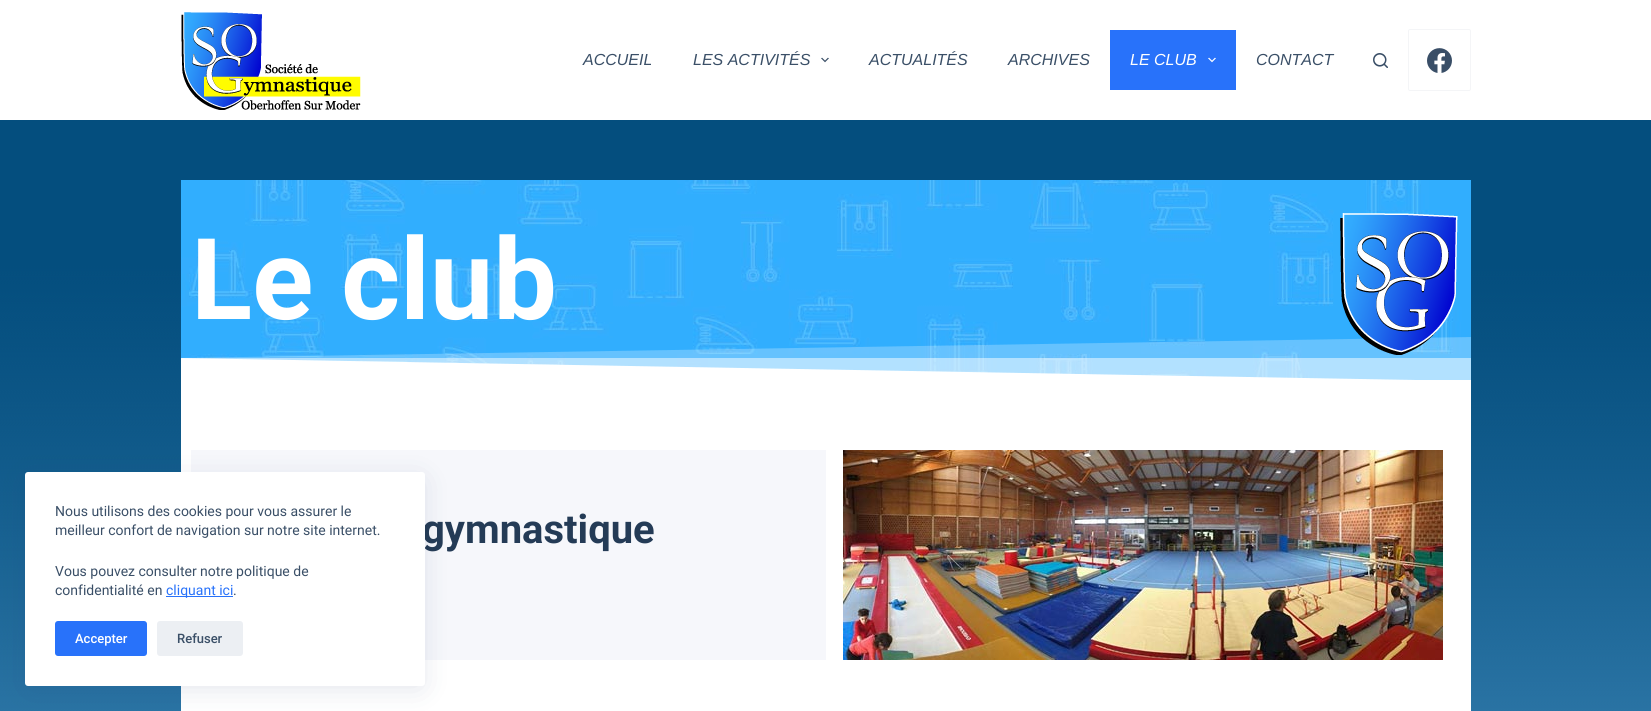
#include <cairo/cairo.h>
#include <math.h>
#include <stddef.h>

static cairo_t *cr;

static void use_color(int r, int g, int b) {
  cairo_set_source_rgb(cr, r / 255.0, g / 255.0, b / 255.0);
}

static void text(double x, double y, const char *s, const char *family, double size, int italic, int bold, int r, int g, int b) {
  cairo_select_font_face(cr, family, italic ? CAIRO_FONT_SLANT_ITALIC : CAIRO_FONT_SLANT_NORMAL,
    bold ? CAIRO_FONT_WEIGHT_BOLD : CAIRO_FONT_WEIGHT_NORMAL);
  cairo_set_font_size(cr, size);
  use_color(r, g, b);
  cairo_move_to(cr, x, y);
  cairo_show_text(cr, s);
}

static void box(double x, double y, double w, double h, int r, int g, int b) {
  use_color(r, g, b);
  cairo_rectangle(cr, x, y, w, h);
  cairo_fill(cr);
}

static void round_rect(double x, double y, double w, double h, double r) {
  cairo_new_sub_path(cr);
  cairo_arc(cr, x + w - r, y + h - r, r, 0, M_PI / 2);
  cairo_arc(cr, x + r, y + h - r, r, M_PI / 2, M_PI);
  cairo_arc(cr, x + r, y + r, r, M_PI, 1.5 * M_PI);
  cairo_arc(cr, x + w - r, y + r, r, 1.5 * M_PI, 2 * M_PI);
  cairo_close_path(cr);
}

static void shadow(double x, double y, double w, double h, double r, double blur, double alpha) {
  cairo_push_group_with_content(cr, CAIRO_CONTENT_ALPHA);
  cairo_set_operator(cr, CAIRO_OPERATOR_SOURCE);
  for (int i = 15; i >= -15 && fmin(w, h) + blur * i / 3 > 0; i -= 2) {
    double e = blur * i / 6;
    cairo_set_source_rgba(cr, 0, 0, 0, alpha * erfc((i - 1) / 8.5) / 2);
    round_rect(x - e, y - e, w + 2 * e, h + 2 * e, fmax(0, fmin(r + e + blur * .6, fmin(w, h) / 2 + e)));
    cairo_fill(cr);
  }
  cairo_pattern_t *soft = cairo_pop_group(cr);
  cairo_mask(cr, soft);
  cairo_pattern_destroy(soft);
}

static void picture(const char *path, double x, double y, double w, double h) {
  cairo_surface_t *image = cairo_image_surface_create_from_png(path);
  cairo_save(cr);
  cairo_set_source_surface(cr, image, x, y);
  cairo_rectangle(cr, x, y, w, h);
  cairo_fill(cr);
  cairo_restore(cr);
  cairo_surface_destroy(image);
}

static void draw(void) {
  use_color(255, 255, 255);
  cairo_paint(cr);
  picture("img_01.png", 0, 120, 1651, 591);
  picture("img_02.png", 181, 12, 180, 98);
  picture("img_03.png", 821, 57, 8, 6);
  box(1110, 30, 126, 60, 40, 114, 250);
  picture("img_04.png", 1208, 57, 8, 6);
  picture("img_05.png", 1373, 53, 15, 15);
  round_rect(1408.5, 29.5, 62, 61, 1.5);
  use_color(244, 245, 247);
  cairo_set_line_width(cr, 1);
  cairo_stroke(cr);
  picture("img_06.png", 1427, 48, 25, 25);
  box(181, 380, 1290, 331, 255, 255, 255);
  picture("img_07.png", 181, 180, 1290, 200);
  cairo_save(cr);
  cairo_rectangle(cr, 181, 337, 1290, 44);
  cairo_clip(cr);
  cairo_new_path(cr);
  cairo_move_to(cr, 1471, 381);
  cairo_line_to(cr, 179, 381);
  cairo_line_to(cr, 179, 358);
  cairo_close_path(cr);
  cairo_fill(cr);
  cairo_restore(cr);
  cairo_set_source_rgba(cr, 1, 1, 1, 0.5);
  cairo_rectangle(cr, 182, 358, 1289, 22);
  cairo_fill(cr);
  cairo_save(cr);
  cairo_rectangle(cr, 181, 337, 1290, 44);
  cairo_clip(cr);
  cairo_set_source_rgba(cr, 1, 1, 1, 0.25);
  cairo_new_path(cr);
  cairo_move_to(cr, 179, 381);
  cairo_line_to(cr, 1471, 381);
  cairo_line_to(cr, 1471, 337);
  cairo_line_to(cr, 179, 358);
  cairo_close_path(cr);
  cairo_fill(cr);
  cairo_restore(cr);
  picture("img_08.png", 1340, 213, 118, 142);
  box(191, 450, 635, 210, 246, 247, 251);
  picture("img_09.png", 843, 450, 600, 210);
  use_color(34, 56, 101);
  shadow(30, 482, 390, 204, 0, 15, 0.15);
  text(583, 65, "ACCUEIL", "Liberation Sans", 16, 1, 0, 58, 79, 103);
  text(693, 65, "LES ACTIVITÉS", "Liberation Sans", 16, 1, 0, 58, 79, 103);
  text(869, 65, "ACTUALITÉS", "Liberation Sans", 16, 1, 0, 58, 79, 103);
  text(1008, 65, "ARCHIVES", "Liberation Sans", 16, 1, 0, 58, 79, 103);
  text(1130, 65, "LE CLUB", "Liberation Sans", 16, 1, 0, 255, 255, 255);
  text(1256, 65, "CONTACT", "Liberation Sans", 16, 1, 0, 58, 79, 103);
  text(191, 319, "Le club", "Roboto", 113, 0, 1, 255, 255, 255);
  text(422, 543, "gymnastique", "Roboto", 40, 0, 1, 36, 59, 86);
  use_color(255, 255, 255);
  round_rect(25, 472, 400, 214, 3);
  cairo_fill(cr);
  text(55, 516, "Nous utilisons des cookies pour vous assurer le", "Roboto", 14, 0, 0, 58, 79, 103);
  text(55, 535, "meilleur confort de navigation sur notre site internet.", "Roboto", 14, 0, 0, 58, 79, 103);
  text(55, 576, "Vous pouvez consulter notre politique de", "Roboto", 14, 0, 0, 58, 79, 103);
  text(55, 595, "confidentialité en", "Roboto", 14, 0, 0, 58, 79, 103);
  box(166, 596, 67, 1, 40, 114, 250);
  text(166, 595, "cliquant ici", "Roboto", 14, 0, 0, 40, 114, 250);
  text(233, 595, ".", "Roboto", 14, 0, 0, 58, 79, 103);
  use_color(40, 114, 250);
  round_rect(55, 621, 92, 35, 3);
  cairo_fill(cr);
  text(75, 643, "Accepter", "Roboto Medium", 13, 0, 0, 255, 255, 255);
  use_color(236, 239, 243);
  round_rect(157, 621, 86, 35, 3);
  cairo_fill(cr);
  text(177, 643, "Refuser", "Roboto Medium", 13, 0, 0, 58, 79, 103);
}

int main(void) {
  cairo_surface_t *surface = cairo_image_surface_create(CAIRO_FORMAT_RGB24, 1651, 711);
  cr = cairo_create(surface);
  cairo_font_options_t *options = cairo_font_options_create();
  cairo_font_options_set_hint_metrics(options, CAIRO_HINT_METRICS_OFF);
  cairo_font_options_set_hint_style(options, CAIRO_HINT_STYLE_NONE);
  cairo_set_font_options(cr, options);
  cairo_set_miter_limit(cr, 4);
  draw();
  cairo_surface_write_to_png(surface, "out.png");
  cairo_font_options_destroy(options);
  cairo_destroy(cr);
  cairo_surface_destroy(surface);
  return 0;
}
